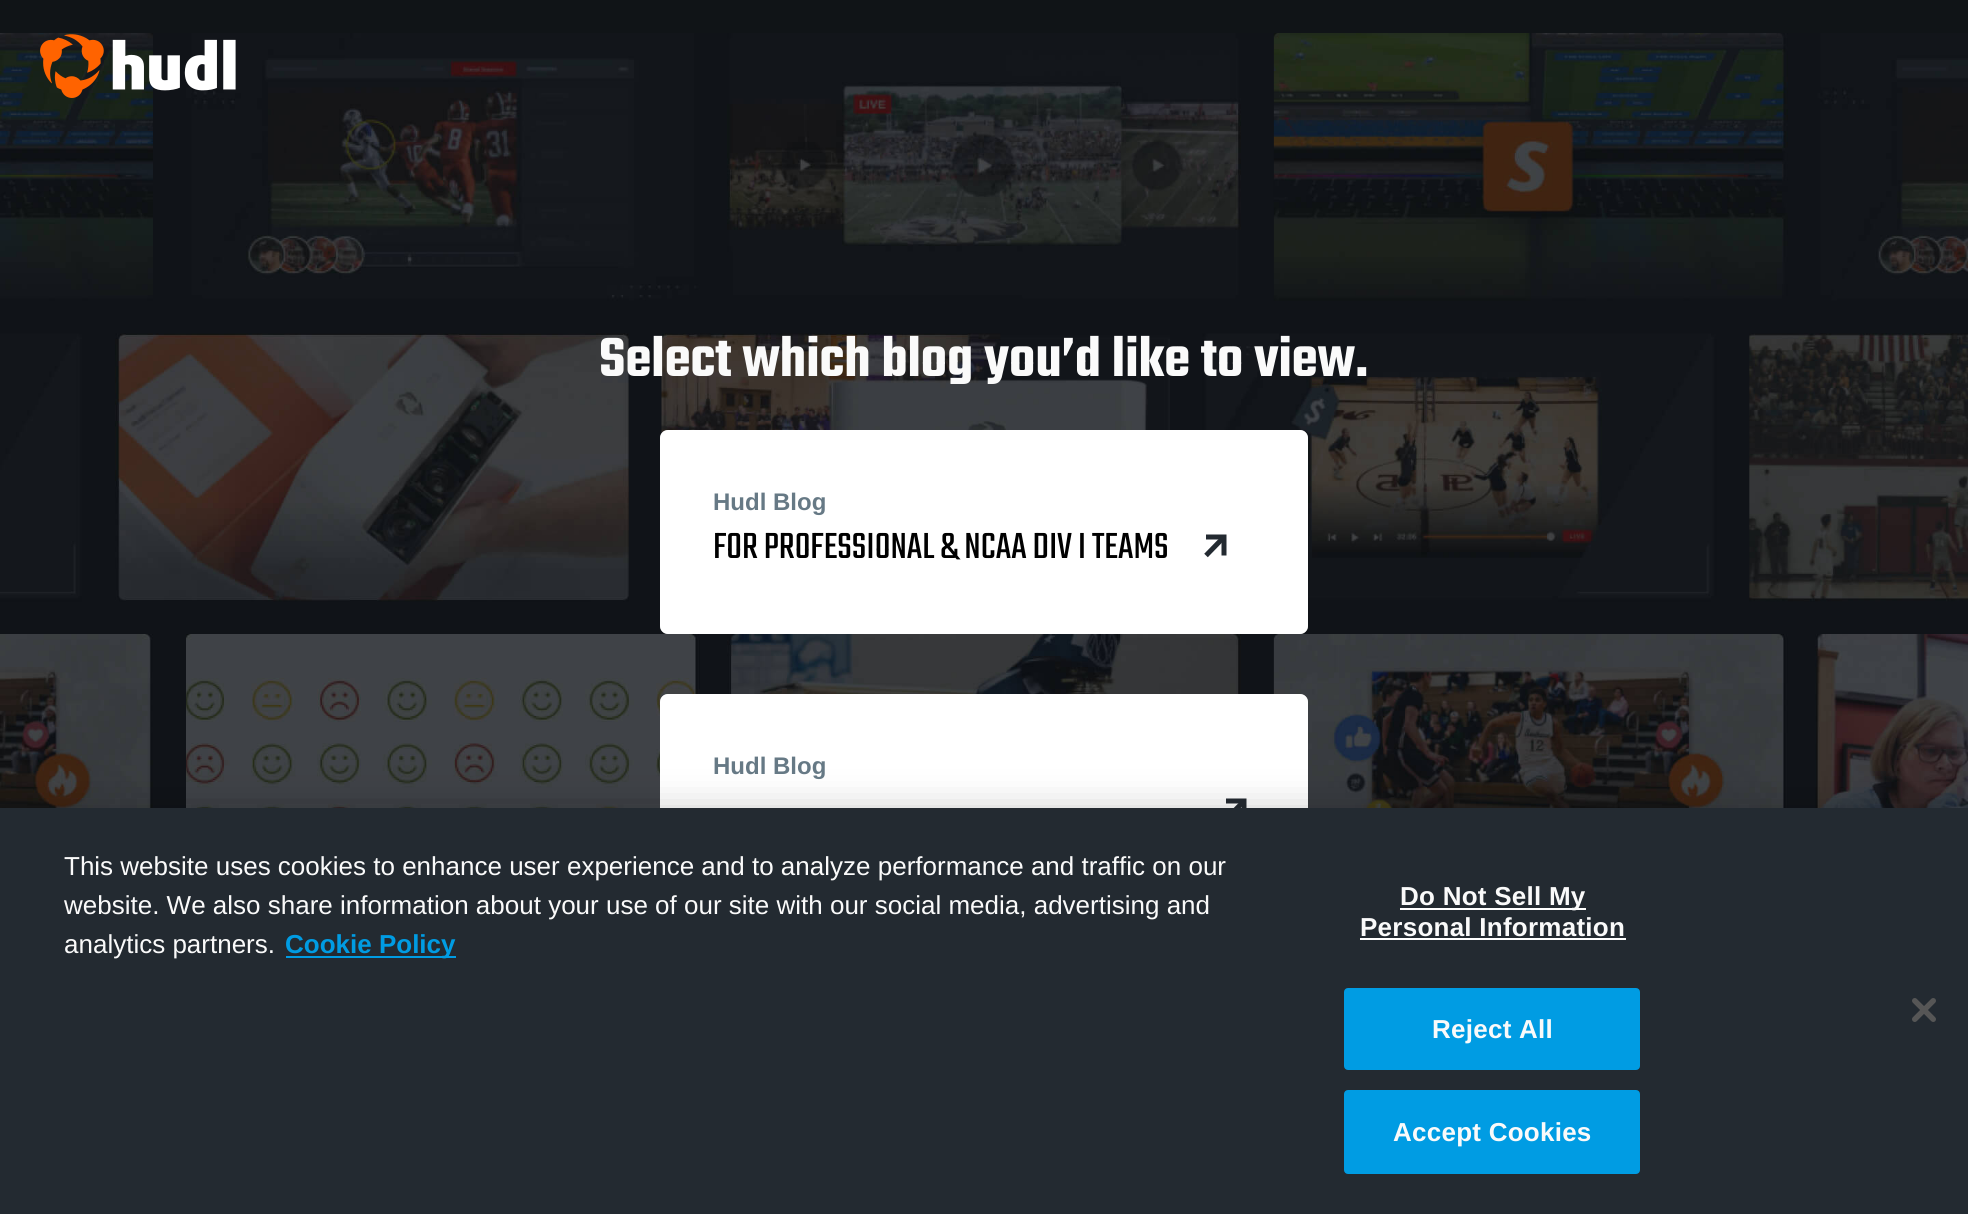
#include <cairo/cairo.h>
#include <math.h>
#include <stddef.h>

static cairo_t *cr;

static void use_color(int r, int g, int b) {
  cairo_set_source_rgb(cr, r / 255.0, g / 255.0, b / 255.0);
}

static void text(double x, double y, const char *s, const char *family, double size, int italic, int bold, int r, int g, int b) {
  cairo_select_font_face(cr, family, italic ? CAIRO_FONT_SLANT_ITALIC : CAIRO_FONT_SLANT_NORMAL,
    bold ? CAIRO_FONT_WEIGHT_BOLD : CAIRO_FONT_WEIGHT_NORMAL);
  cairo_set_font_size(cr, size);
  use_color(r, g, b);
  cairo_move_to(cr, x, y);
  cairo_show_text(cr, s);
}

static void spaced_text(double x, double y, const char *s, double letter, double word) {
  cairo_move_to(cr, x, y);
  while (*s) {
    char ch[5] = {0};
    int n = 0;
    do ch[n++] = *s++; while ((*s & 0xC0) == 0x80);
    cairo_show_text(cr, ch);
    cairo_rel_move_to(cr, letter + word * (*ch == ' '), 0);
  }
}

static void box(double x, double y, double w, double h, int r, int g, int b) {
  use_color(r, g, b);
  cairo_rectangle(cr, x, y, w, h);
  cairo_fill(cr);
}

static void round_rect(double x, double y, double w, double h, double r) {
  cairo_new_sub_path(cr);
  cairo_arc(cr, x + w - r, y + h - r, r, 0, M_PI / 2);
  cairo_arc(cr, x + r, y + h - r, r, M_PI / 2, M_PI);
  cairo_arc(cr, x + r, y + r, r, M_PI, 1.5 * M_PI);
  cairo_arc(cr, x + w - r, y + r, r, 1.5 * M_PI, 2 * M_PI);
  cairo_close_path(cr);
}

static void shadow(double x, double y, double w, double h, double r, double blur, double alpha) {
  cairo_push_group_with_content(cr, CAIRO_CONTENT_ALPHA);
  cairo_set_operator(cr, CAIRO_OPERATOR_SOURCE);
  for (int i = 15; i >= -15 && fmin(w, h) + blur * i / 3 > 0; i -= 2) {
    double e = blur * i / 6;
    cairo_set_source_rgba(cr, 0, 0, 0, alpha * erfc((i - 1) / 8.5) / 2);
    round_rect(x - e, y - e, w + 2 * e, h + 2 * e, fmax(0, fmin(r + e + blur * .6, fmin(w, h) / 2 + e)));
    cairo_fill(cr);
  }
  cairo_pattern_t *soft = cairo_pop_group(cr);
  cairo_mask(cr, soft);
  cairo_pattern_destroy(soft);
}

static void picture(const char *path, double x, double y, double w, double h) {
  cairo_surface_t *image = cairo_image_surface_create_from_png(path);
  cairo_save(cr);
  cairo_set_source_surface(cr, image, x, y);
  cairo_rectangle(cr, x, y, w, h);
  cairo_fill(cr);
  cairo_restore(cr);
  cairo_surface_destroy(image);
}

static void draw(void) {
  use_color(16, 20, 23);
  cairo_paint(cr);
  picture("img_01.png", 0, 33, 1968, 775);
  picture("img_02.png", 40, 34, 196, 64);
  use_color(255, 255, 255);
  round_rect(660, 430, 648, 204, 8);
  cairo_fill(cr);
  round_rect(662, 432, 644, 200, 6);
  cairo_set_source_rgba(cr, 1, 1, 1, 0.5);
  cairo_set_line_width(cr, 4);
  cairo_stroke(cr);
  cairo_new_path(cr);
  cairo_move_to(cr, 1224, 537);
  cairo_line_to(cr, 1206, 555.5);
  use_color(35, 42, 49);
  cairo_set_line_width(cr, 5);
  cairo_set_line_join(cr, CAIRO_LINE_JOIN_BEVEL);
  cairo_stroke(cr);
  cairo_new_path(cr);
  cairo_move_to(cr, 1224, 553);
  cairo_line_to(cr, 1224, 537);
  cairo_line_to(cr, 1208.5, 537);
  cairo_set_line_cap(cr, CAIRO_LINE_CAP_SQUARE);
  cairo_set_line_join(cr, CAIRO_LINE_JOIN_MITER);
  cairo_stroke(cr);
  use_color(255, 255, 255);
  round_rect(660, 694, 648, 204, 8);
  cairo_fill(cr);
  round_rect(662, 696, 644, 200, 6);
  cairo_set_source_rgba(cr, 1, 1, 1, 0.5);
  cairo_set_line_width(cr, 4);
  cairo_set_line_cap(cr, CAIRO_LINE_CAP_BUTT);
  cairo_stroke(cr);
  cairo_new_path(cr);
  cairo_move_to(cr, 1244, 801);
  cairo_line_to(cr, 1226, 819.5);
  use_color(35, 42, 49);
  cairo_set_line_width(cr, 5);
  cairo_set_line_join(cr, CAIRO_LINE_JOIN_BEVEL);
  cairo_stroke(cr);
  cairo_new_path(cr);
  cairo_move_to(cr, 1244, 817);
  cairo_line_to(cr, 1244, 801);
  cairo_line_to(cr, 1228.5, 801);
  cairo_set_line_cap(cr, CAIRO_LINE_CAP_SQUARE);
  cairo_set_line_join(cr, CAIRO_LINE_JOIN_MITER);
  cairo_stroke(cr);
  use_color(0, 0, 0);
  shadow(0, 808, 1968, 406, 0, 18, 0.2);
  box(0, 808, 1968, 406, 35, 42, 49);
  box(286, 956, 170, 2, 0, 156, 227);
  box(1400, 908, 186, 2, 255, 255, 255);
  box(1360, 938, 266, 2, 255, 255, 255);
  use_color(0, 156, 227);
  round_rect(1345, 989, 294, 80, 3);
  cairo_fill_preserve(cr);
  cairo_set_line_width(cr, 2);
  cairo_set_line_cap(cr, CAIRO_LINE_CAP_BUTT);
  cairo_stroke(cr);
  round_rect(1345, 1091, 294, 82, 3);
  cairo_fill_preserve(cr);
  cairo_stroke(cr);
  picture("img_03.png", 1912, 998, 24, 24);
  text(599, 376, "Select which blog you’d like to view.", "Teko SemiBold", 60, 0, 0, 250, 250, 250);
  text(713, 510, "Hudl Blog", "Liberation Sans", 24, 0, 1, 102, 121, 133);
  text(713, 558, "FOR PROFESSIONAL & NCAA DIV I TEAMS", "Teko", 40, 0, 0, 0, 0, 0);
  text(713, 774, "Hudl Blog", "Liberation Sans", 24, 0, 1, 102, 121, 133);
  text(64, 875, "This website uses cookies to enhance user experience and to analyze performance and traffic on our", "Liberation Sans", 26, 0, 0, 250, 250, 250);
  text(64, 914, "website. We also share information about your use of our site with our social media, advertising and", "Liberation Sans", 26, 0, 0, 250, 250, 250);
  text(64, 953, "analytics partners.", "Liberation Sans", 26, 0, 0, 250, 250, 250);
  text(285, 953, "Cookie Policy", "Liberation Sans", 26, 0, 1, 0, 156, 227);
  use_color(250, 250, 250);
  spaced_text(1400, 905, "Do Not Sell My", 0.25, 0);
  spaced_text(1360, 936, "Personal Information", 0.25, 0);
  spaced_text(1432, 1038, "Reject All", 0.25, 0);
  spaced_text(1393, 1141, "Accept Cookies", 0.25, 0);
}

int main(void) {
  cairo_surface_t *surface = cairo_image_surface_create(CAIRO_FORMAT_RGB24, 1968, 1214);
  cr = cairo_create(surface);
  cairo_font_options_t *options = cairo_font_options_create();
  cairo_font_options_set_hint_metrics(options, CAIRO_HINT_METRICS_OFF);
  cairo_font_options_set_hint_style(options, CAIRO_HINT_STYLE_NONE);
  cairo_set_font_options(cr, options);
  cairo_set_miter_limit(cr, 4);
  draw();
  cairo_surface_write_to_png(surface, "out.png");
  cairo_font_options_destroy(options);
  cairo_destroy(cr);
  cairo_surface_destroy(surface);
  return 0;
}
